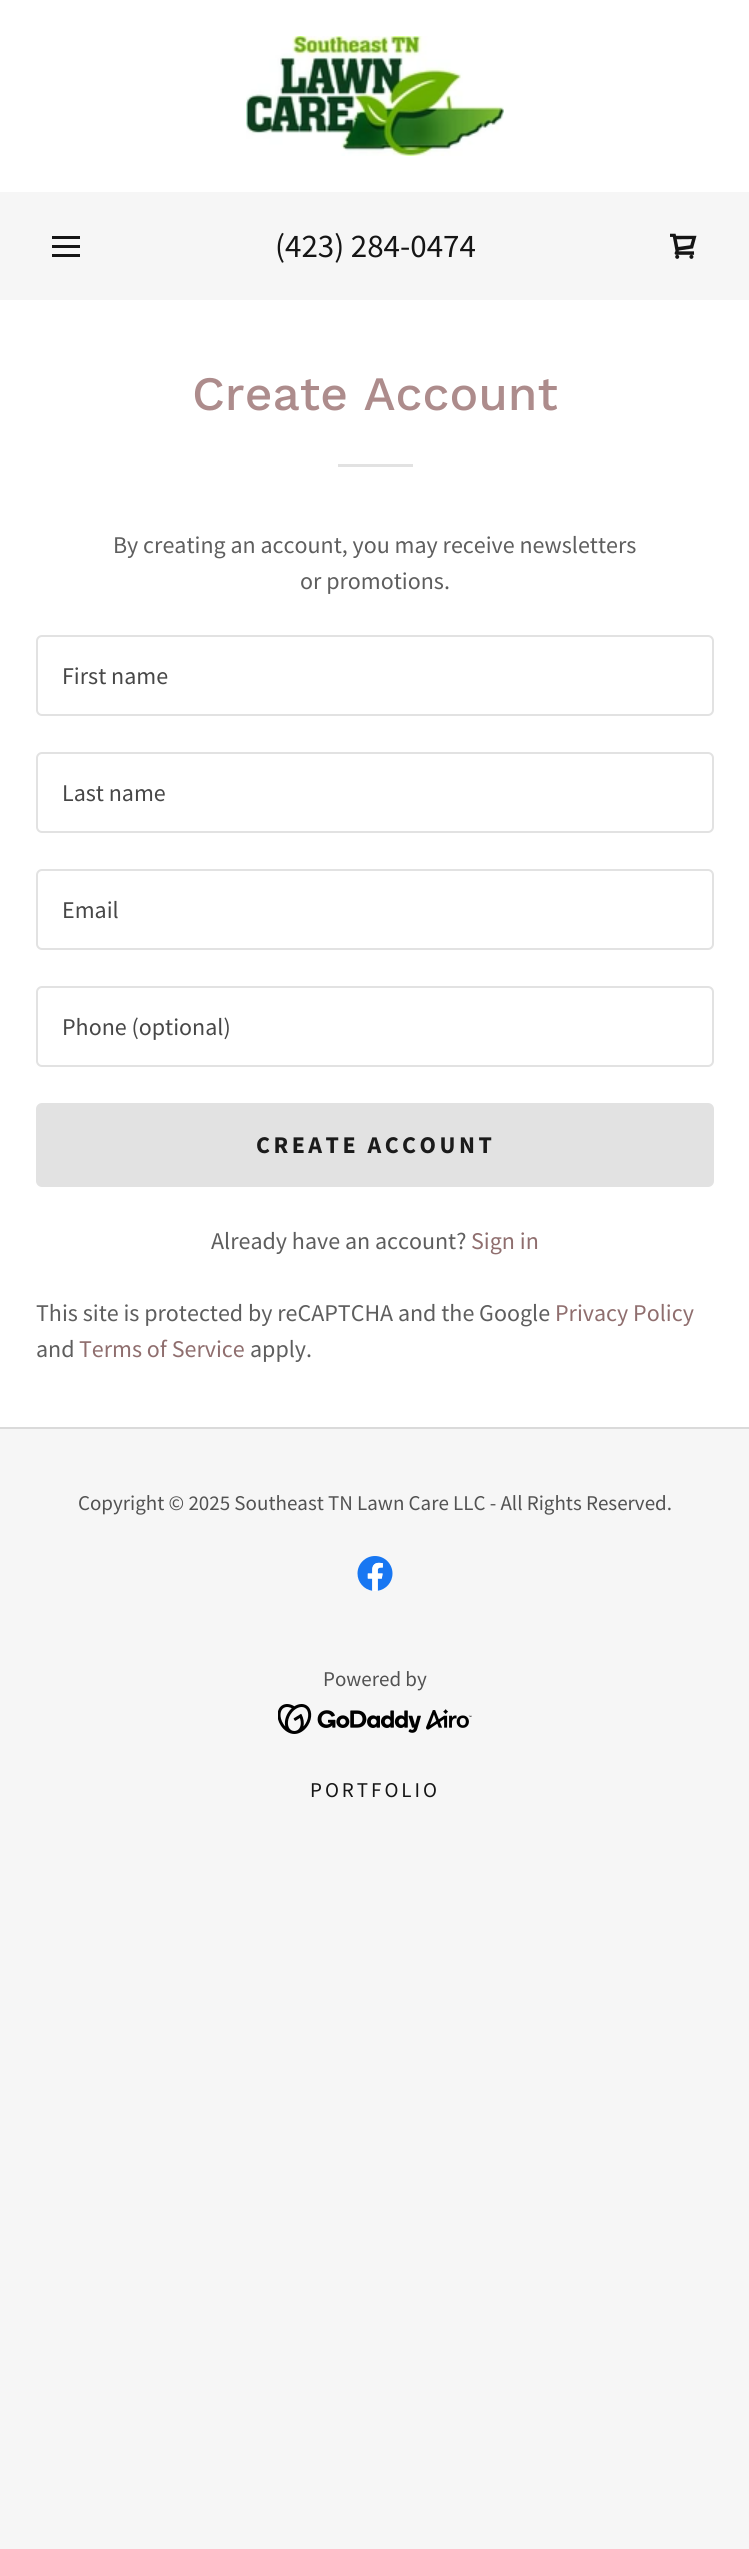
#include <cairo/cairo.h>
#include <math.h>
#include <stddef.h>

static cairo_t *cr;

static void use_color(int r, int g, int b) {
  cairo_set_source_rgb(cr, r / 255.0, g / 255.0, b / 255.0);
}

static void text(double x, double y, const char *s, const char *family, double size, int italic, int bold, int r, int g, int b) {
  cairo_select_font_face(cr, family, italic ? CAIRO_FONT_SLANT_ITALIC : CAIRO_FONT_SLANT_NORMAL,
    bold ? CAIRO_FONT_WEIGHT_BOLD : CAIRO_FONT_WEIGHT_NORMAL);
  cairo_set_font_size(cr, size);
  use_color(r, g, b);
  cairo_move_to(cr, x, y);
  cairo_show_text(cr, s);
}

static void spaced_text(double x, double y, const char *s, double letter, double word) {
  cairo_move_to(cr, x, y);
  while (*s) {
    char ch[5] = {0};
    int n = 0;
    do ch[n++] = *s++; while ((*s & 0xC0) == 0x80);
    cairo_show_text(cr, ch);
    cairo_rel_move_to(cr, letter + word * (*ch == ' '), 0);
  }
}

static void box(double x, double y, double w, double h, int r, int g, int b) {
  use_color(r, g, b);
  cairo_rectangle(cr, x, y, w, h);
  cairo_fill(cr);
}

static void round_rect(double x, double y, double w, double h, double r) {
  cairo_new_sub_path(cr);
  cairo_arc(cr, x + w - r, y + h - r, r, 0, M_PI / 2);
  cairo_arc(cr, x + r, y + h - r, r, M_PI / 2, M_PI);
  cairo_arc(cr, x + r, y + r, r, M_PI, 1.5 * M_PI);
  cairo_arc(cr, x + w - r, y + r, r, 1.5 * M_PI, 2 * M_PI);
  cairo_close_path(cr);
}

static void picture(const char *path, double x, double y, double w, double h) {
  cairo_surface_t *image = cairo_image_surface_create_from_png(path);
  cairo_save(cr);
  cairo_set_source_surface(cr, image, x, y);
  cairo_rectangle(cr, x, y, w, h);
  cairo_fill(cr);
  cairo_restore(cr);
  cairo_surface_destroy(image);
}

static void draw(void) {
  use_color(246, 246, 246);
  cairo_paint(cr);
  box(0, 0, 749, 192, 255, 255, 255);
  picture("img_01.png", 246, 36, 258, 120);
  box(52, 236, 28, 3, 21, 21, 21);
  box(52, 245, 28, 3, 21, 21, 21);
  box(52, 254, 28, 3, 21, 21, 21);
  picture("img_02.png", 670, 233, 27, 26);
  box(0, 300, 749, 1127, 255, 255, 255);
  box(338, 464, 75, 3, 226, 226, 226);
  round_rect(37, 636, 676, 79, 5);
  cairo_stroke(cr);
  round_rect(37, 753, 676, 79, 5);
  cairo_stroke(cr);
  round_rect(37, 870, 676, 79, 5);
  cairo_stroke(cr);
  round_rect(37, 987, 676, 79, 5);
  cairo_stroke(cr);
  round_rect(36, 1103, 678, 84, 6);
  cairo_fill(cr);
  box(0, 1427, 749, 2, 218, 218, 218);
  picture("img_03.png", 357, 1556, 36, 35);
  picture("img_04.png", 278, 1704, 194, 30);
  text(275, 257, "(423) 284-0474", "Source Sans Pro", 33, 0, 0, 21, 21, 21);
  text(192, 410, "Create Account", "Work Sans Medium", 48, 0, 0, 173, 140, 140);
  text(113, 553, "By creating an account, you may receive newsletters", "Source Sans Pro", 24, 0, 0, 94, 94, 94);
  text(300, 589, "or promotions.", "Source Sans Pro", 24, 0, 0, 94, 94, 94);
  text(62, 684, "First name", "Source Sans Pro", 24, 0, 0, 71, 71, 71);
  text(62, 801, "Last name", "Source Sans Pro", 24, 0, 0, 71, 71, 71);
  text(62, 918, "Email", "Source Sans Pro", 24, 0, 0, 71, 71, 71);
  text(62, 1035, "Phone (optional)", "Source Sans Pro", 24, 0, 0, 71, 71, 71);
  cairo_select_font_face(cr, "Source Sans Pro", CAIRO_FONT_SLANT_NORMAL, CAIRO_FONT_WEIGHT_BOLD);
  use_color(27, 27, 27);
  spaced_text(256, 1153, "CREATE ACCOUNT", 3.5, 0);
  text(211, 1249, "Already have an account?", "Source Sans Pro", 24, 0, 0, 94, 94, 94);
  text(471, 1249, "Sign in", "Source Sans Pro", 24, 0, 0, 143, 110, 110);
  text(36, 1321, "This site is protected by reCAPTCHA and the Google", "Source Sans Pro", 24, 0, 0, 94, 94, 94);
  text(555, 1321, "Privacy Policy", "Source Sans Pro", 24, 0, 0, 143, 110, 110);
  text(36, 1357, "and", "Source Sans Pro", 24, 0, 0, 94, 94, 94);
  text(79, 1357, "Terms of Service", "Source Sans Pro", 24, 0, 0, 143, 110, 110);
  text(250, 1357, "apply.", "Source Sans Pro", 24, 0, 0, 94, 94, 94);
  text(78, 1510, "Copyright © 2025 Southeast TN Lawn Care LLC - All Rights Reserved.", "Source Sans Pro", 21, 0, 0, 82, 82, 82);
  text(323, 1686, "Powered by", "Source Sans Pro", 21, 0, 0, 82, 82, 82);
  use_color(21, 21, 21);
  spaced_text(310, 1797, "PORTFOLIO", 3, 0);
}

int main(void) {
  cairo_surface_t *surface = cairo_image_surface_create(CAIRO_FORMAT_RGB24, 749, 2549);
  cr = cairo_create(surface);
  cairo_font_options_t *options = cairo_font_options_create();
  cairo_font_options_set_hint_metrics(options, CAIRO_HINT_METRICS_OFF);
  cairo_font_options_set_hint_style(options, CAIRO_HINT_STYLE_NONE);
  cairo_set_font_options(cr, options);
  cairo_set_miter_limit(cr, 4);
  draw();
  cairo_surface_write_to_png(surface, "out.png");
  cairo_font_options_destroy(options);
  cairo_destroy(cr);
  cairo_surface_destroy(surface);
  return 0;
}
